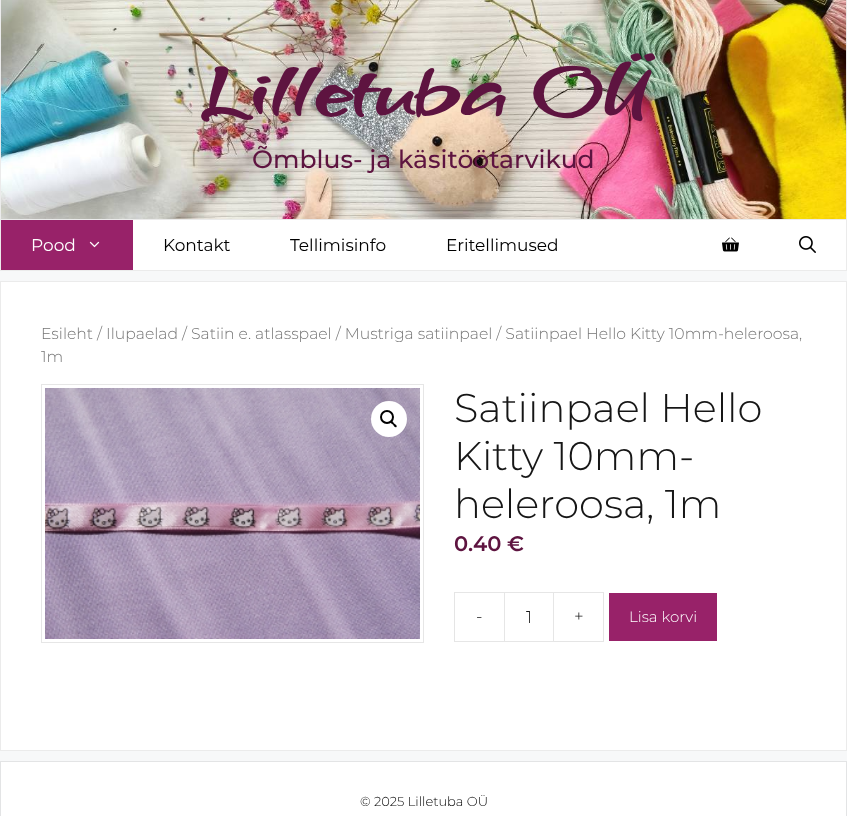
<svg xmlns="http://www.w3.org/2000/svg" width="847" height="816">
<rect width="100%" height="100%" fill="#f7f8f9"/>
<image x="1" y="0" width="845" height="219" href="media/1.png"/>
<path d="M847-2v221h-1v-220z" fill="#ebebeb"/>
<path d="M0 219v-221l1 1v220z" fill="#ebebeb"/>
<text x="199" y="115" style="font-family:Grechen Fuemen;font-size:85px;font-weight:bold;fill:#5e1440">Lilletuba OÜ</text>
<text x="252" y="168" style="font-family:Montserrat;font-size:25px;font-weight:500;fill:#5e1440">Õmblus- ja käsitöötarvikud</text>
<rect x="133" y="220" width="713" height="50" fill="#fff"/>
<rect x="0.5" y="219.5" width="846" height="51" fill="none" stroke="#ebebeb"/>
<rect x="1" y="220" width="132" height="50" fill="#982269"/>
<text x="31" y="251" style="font-family:Montserrat;font-size:17px;fill:#fff">Pood</text>
<image x="89" y="241" width="11" height="7" href="media/2.png"/>
<text x="163" y="251" style="font-family:Montserrat;font-size:17px;fill:#000">Kontakt</text>
<text x="290" y="251" style="font-family:Montserrat;font-size:17px;fill:#000">Tellimisinfo</text>
<text x="446" y="251" style="font-family:Montserrat;font-size:17px;fill:#000">Eritellimused</text>
<image x="722" y="237" width="17" height="15" href="media/3.png"/>
<image x="799" y="236" width="17" height="17" href="media/4.png"/>
<rect x="0.5" y="281.5" width="846" height="469" fill="#fff" stroke="#ebebeb"/>
<text x="41" y="339" style="font-family:Montserrat;font-size:15.65px;font-weight:300;fill:#767676">Esileht / Ilupaelad / Satiin e. atlasspael / Mustriga satiinpael / Satiinpael Hello Kitty 10mm-heleroosa,</text>
<text x="41" y="362" style="font-family:Montserrat;font-size:15.65px;font-weight:300;fill:#767676">1m</text>
<rect x="41.5" y="384.5" width="382" height="258" fill="none" stroke="#e6e6e6"/>
<image x="45" y="388" width="375" height="251" href="media/5.png"/>
<circle cx="389" cy="419" r="18" fill="#fff"/>
<circle cx="387" cy="417" r="6" fill="none" stroke="#000" stroke-width="2"/>
<path d="M390.5 421c1.5-1 3 1.5 3.5 2.5c1 .5 3.5 2 2.5 3.5c-1.5 1-3-1.5-3.5-2.5c-1-.5-3.5-2-2.5-3.5z" fill="#000"/>
<text x="454" y="422" style="font-family:Montserrat;font-size:40px;font-weight:300;fill:#161616">Satiinpael Hello</text>
<text x="454" y="470" style="font-family:Montserrat;font-size:40px;font-weight:300;fill:#161616">Kitty 10mm-</text>
<text x="454" y="518" style="font-family:Montserrat;font-size:40px;font-weight:300;fill:#161616">heleroosa, 1m</text>
<text x="454" y="551" style="font-family:Montserrat;font-size:21px;font-weight:600;fill:#5e1440">0.40 €</text>
<path d="M454 592h50v1h-49zm50 50h-50l1-1h49z" fill="#e6e6e6"/>
<path d="M454 642v-50l1 1v48z" fill="#0000001a"/>
<text x="476" y="622" style="font-family:Montserrat;font-size:17px;font-weight:300;fill:#161616">-</text>
<rect x="504.5" y="592.5" width="49" height="49" fill="none" stroke="#e6e6e6"/>
<text x="526" y="623" style="font-family:Montserrat;font-size:17px;font-weight:300;fill:#161616">1</text>
<path d="M554 592h50l-1 1h-49z" fill="#e6e6e6"/>
<path d="M604 592v50l-1-1v-48z" fill="#0000001a"/>
<path d="M604 642h-50v-1h49z" fill="#0000001a"/>
<text x="574" y="622" style="font-family:Montserrat;font-size:17px;font-weight:300;fill:#161616">+</text>
<rect x="609" y="593" width="108" height="48" fill="#982269"/>
<text x="629" y="622" style="font-family:Montserrat;font-size:15px;font-weight:300;fill:#fff">Lisa korvi</text>
<path d="M0 761h847l-1 1h-845z" fill="#e3e4e5"/>
<path d="M847 761v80h-1v-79z" fill="#00000014"/>
<path d="M0 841v-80l1 1v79z" fill="#00000014"/>
<rect x="1" y="762" width="845" height="54" fill="#fff"/>
<text x="360" y="806" style="font-family:Montserrat;font-size:13px;font-weight:300;fill:#000">© 2025 Lilletuba OÜ</text>
</svg>
